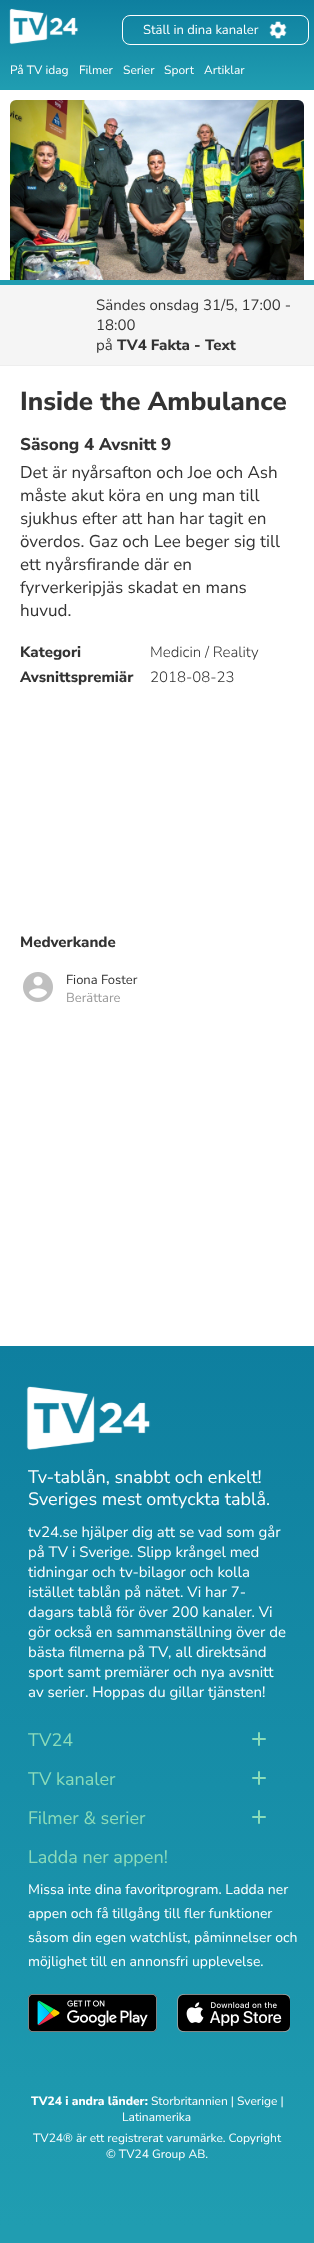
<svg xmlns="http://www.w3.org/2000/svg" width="314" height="2243">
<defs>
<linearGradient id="g1" gradientUnits="userSpaceOnUse" x1="157" y1="90" x2="157" y2="0"><stop offset="0.02" stop-color="#209db1"/><stop offset="1" stop-color="#0e7f9f"/></linearGradient>
<linearGradient id="g2" gradientUnits="userSpaceOnUse" x1="157" y1="2243" x2="157" y2="1346"><stop offset="0.02" stop-color="#209db1"/><stop offset="1" stop-color="#0e7f9f"/></linearGradient>
</defs>
<rect width="100%" height="100%" fill="#fff"/>
<rect width="314" height="90" fill="url(#g1)"/>
<image x="9" y="8" width="70" height="37" href="media/1.png"/>
<rect x="122.5" y="15.5" width="186" height="29" rx="7.5" fill="none" stroke="#fff"/>
<text x="143" y="34" style="font-family:Nunito Sans;font-size:13px;fill:#fff">Ställ in dina kanaler</text>
<image x="269" y="21" width="18" height="18" href="media/2.png"/>
<text x="10" y="74" style="font-family:Nunito Sans;font-size:12px;fill:#fff">På TV idag</text>
<text x="79" y="74" style="font-family:Nunito Sans;font-size:12px;fill:#fff">Filmer</text>
<text x="123" y="74" style="font-family:Nunito Sans;font-size:12px;fill:#fff">Serier</text>
<text x="164" y="74" style="font-family:Nunito Sans;font-size:12px;fill:#fff">Sport</text>
<text x="204" y="74" style="font-family:Nunito Sans;font-size:12px;fill:#fff">Artiklar</text>
<image x="10" y="100" width="294" height="180" href="media/3.png"/>
<rect y="285" width="314" height="80" fill="#f5f5f5"/>
<rect y="280" width="314" height="5" fill="#209db1"/>
<rect y="365" width="314" height="1" fill="#eee"/>
<text x="96" y="310" style="font-family:Nunito Sans;font-size:15px;fill:#333">Sändes onsdag 31/5, 17:00 -</text>
<text x="96" y="330" style="font-family:Nunito Sans;font-size:15px;fill:#333">18:00</text>
<text x="96" y="350" style="font-family:Nunito Sans;font-size:15px;fill:#333">på</text>
<text x="117" y="350" style="font-family:Nunito Sans;font-size:15px;font-weight:800;fill:#333">TV4 Fakta - Text</text>
<text x="20" y="410" style="font-family:Nunito Sans;font-size:26px;font-weight:800;fill:#333">Inside the Ambulance</text>
<text x="20" y="450" style="font-family:Nunito Sans;font-size:17px;font-weight:800;fill:#333">Säsong 4 Avsnitt 9</text>
<text x="20" y="478" style="font-family:Nunito Sans;font-size:17px;fill:#333">Det är nyårsafton och Joe och Ash</text>
<text x="20" y="501" style="font-family:Nunito Sans;font-size:17px;fill:#333">måste akut köra en ung man till</text>
<text x="20" y="524" style="font-family:Nunito Sans;font-size:17px;fill:#333">sjukhus efter att han har tagit en</text>
<text x="20" y="547" style="font-family:Nunito Sans;font-size:17px;fill:#333">överdos. Gaz och Lee beger sig till</text>
<text x="20" y="570" style="font-family:Nunito Sans;font-size:17px;fill:#333">ett nyårsfirande där en</text>
<text x="20" y="593" style="font-family:Nunito Sans;font-size:17px;fill:#333">fyrverkeripjäs skadat en mans</text>
<text x="20" y="616" style="font-family:Nunito Sans;font-size:17px;fill:#333">huvud.</text>
<text x="20" y="657" style="font-family:Nunito Sans;font-size:15px;font-weight:800;fill:#333">Kategori</text>
<text x="150" y="657" style="font-family:Nunito Sans;font-size:15px;font-weight:300;fill:#333">Medicin / Reality</text>
<text x="20" y="682" style="font-family:Nunito Sans;font-size:15px;font-weight:800;fill:#333">Avsnittspremiär</text>
<text x="150" y="682" style="font-family:Nunito Sans;font-size:15px;font-weight:300;fill:#333">2018-08-23</text>
<text x="20" y="947" style="font-family:Nunito Sans;font-size:15px;font-weight:800;fill:#333">Medverkande</text>
<image x="23" y="972" width="30" height="30" href="media/4.png"/>
<text x="66" y="984" style="font-family:Nunito Sans;font-size:13px;fill:#333">Fiona Foster</text>
<text x="66" y="1002" style="font-family:Nunito Sans;font-size:13px;fill:#999">Berättare</text>
<rect y="1346" width="314" height="897" fill="url(#g2)"/>
<image x="26" y="1386" width="125" height="64" href="media/5.png"/>
<text x="28" y="1483" style="font-family:Nunito Sans;font-size:18px;fill:#fff">Tv-tablån, snabbt och enkelt!</text>
<text x="28" y="1505" style="font-family:Nunito Sans;font-size:18px;fill:#fff">Sveriges mest omtyckta tablå.</text>
<text x="28" y="1537" style="font-family:Nunito Sans;font-size:15px;fill:#fff">tv24.se hjälper dig att se vad som går</text>
<text x="28" y="1557" style="font-family:Nunito Sans;font-size:15px;fill:#fff">på TV i Sverige. Slipp krångel med</text>
<text x="28" y="1577" style="font-family:Nunito Sans;font-size:15px;fill:#fff">tidningar och tv-bilagor och kolla</text>
<text x="28" y="1597" style="font-family:Nunito Sans;font-size:15px;fill:#fff">istället tablån på nätet. Vi har 7-</text>
<text x="28" y="1617" style="font-family:Nunito Sans;font-size:15px;fill:#fff">dagars tablå för över 200 kanaler. Vi</text>
<text x="28" y="1637" style="font-family:Nunito Sans;font-size:15px;fill:#fff">gör också en sammanställning över de</text>
<text x="28" y="1657" style="font-family:Nunito Sans;font-size:15px;fill:#fff">bästa filmerna på TV</text>
<text x="168" y="1657" style="font-family:Nunito Sans;font-size:15px;fill:#fff">, all direktsänd</text>
<text x="28" y="1677" style="font-family:Nunito Sans;font-size:15px;fill:#fff">sport samt premiärer och nya avsnitt</text>
<text x="28" y="1697" style="font-family:Nunito Sans;font-size:15px;fill:#fff">av serier</text>
<text x="85" y="1697" style="font-family:Nunito Sans;font-size:15px;fill:#fff">. Hoppas du gillar tjänsten!</text>
<text x="28" y="1746" style="font-family:Nunito Sans;font-size:18px;fill:#8bdcba">TV24</text>
<rect x="252" y="1738" width="14" height="2" rx="1" fill="#8bdcba"/>
<rect x="258" y="1732" width="2" height="14" rx="1" fill="#8bdcba"/>
<text x="28" y="1785" style="font-family:Nunito Sans;font-size:18px;fill:#8bdcba">TV kanaler</text>
<rect x="252" y="1777" width="14" height="2" rx="1" fill="#8bdcba"/>
<rect x="258" y="1771" width="2" height="14" rx="1" fill="#8bdcba"/>
<text x="28" y="1824" style="font-family:Nunito Sans;font-size:18px;fill:#8bdcba">Filmer &amp; serier</text>
<rect x="252" y="1816" width="14" height="2" rx="1" fill="#8bdcba"/>
<rect x="258" y="1810" width="2" height="14" rx="1" fill="#8bdcba"/>
<text x="28" y="1863" style="font-family:Nunito Sans;font-size:18px;fill:#8bdcba">Ladda ner appen!</text>
<text x="28" y="1894" style="font-family:Nunito Sans;font-size:14px;fill:#fff">Missa inte dina favoritprogram. Ladda ner</text>
<text x="28" y="1918" style="font-family:Nunito Sans;font-size:14px;fill:#fff">appen och få tillgång till fler funktioner</text>
<text x="28" y="1942" style="font-family:Nunito Sans;font-size:14px;fill:#fff">såsom din egen watchlist, påminnelser och</text>
<text x="28" y="1966" style="font-family:Nunito Sans;font-size:14px;fill:#fff">möjlighet till en annonsfri upplevelse.</text>
<image x="28" y="1994" width="129" height="38" href="media/6.png"/>
<image x="177" y="1994" width="113" height="38" href="media/7.png"/>
<text x="31" y="2105" style="font-family:Nunito Sans;font-size:12px;font-weight:800;fill:#fff">TV24 i andra länder:</text>
<text x="151" y="2105" style="font-family:Nunito Sans;font-size:12px;fill:#fff">Storbritannien | Sverige |</text>
<text x="122" y="2121" style="font-family:Nunito Sans;font-size:12px;fill:#fff">Latinamerika</text>
<text x="33" y="2142" style="font-family:Nunito Sans;font-size:12px;fill:#fff">TV24® är ett registrerat varumärke. Copyright</text>
<text x="106" y="2158" style="font-family:Nunito Sans;font-size:12px;fill:#fff">© TV24 Group AB.</text>
</svg>
